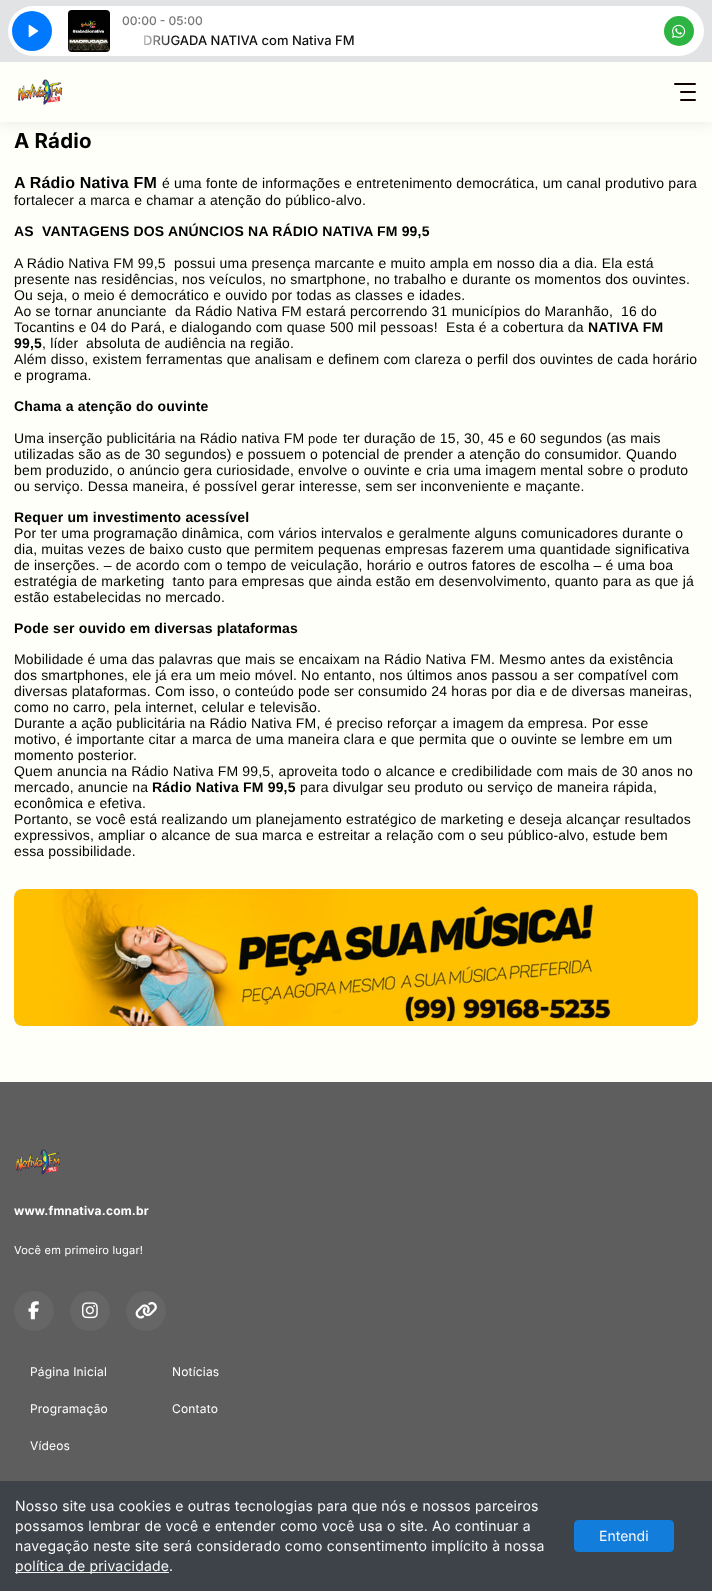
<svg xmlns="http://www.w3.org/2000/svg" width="712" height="1591">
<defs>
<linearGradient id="g1" gradientUnits="userSpaceOnUse" x1="122" y1="41" x2="174" y2="41"><stop offset="0.2" stop-color="#fff"/><stop offset="1" stop-color="#fff" stop-opacity="0"/></linearGradient>
</defs>
<rect width="100%" height="100%" fill="#fffffa"/>
<rect y="64" width="712" height="60" fill="#00000012" filter="blur(7px)"/>
<rect width="712" height="62" fill="#e2e3e4"/>
<rect x="8" y="6" width="696" height="50" rx="25" fill="#fff"/>
<circle cx="32" cy="31" r="20" fill="#0079ff"/>
<image x="28" y="24" width="11" height="14" href="media/1.png"/>
<image x="68" y="10" width="42" height="42" href="media/2.png"/>
<text x="122" y="25" style="font-family:Inter;font-size:12px;font-weight:500;fill:#767676">00:00 - 05:00</text>
<text x="143" y="45" style="font-family:Inter;font-size:13px;font-weight:500;fill:#111">DRUGADA NATIVA com Nativa FM</text>
<rect x="144" y="35" width="29" height="11" fill="url(#g1)"/>
<circle cx="679" cy="31" r="15" fill="#2db442"/>
<image x="672" y="24" width="14" height="14" href="media/3.png"/>
<rect y="62" width="712" height="60" fill="#fffffa"/>
<image x="18" y="79" width="45" height="26" href="media/4.png"/>
<rect x="680" y="91" width="16" height="2" rx="1" fill="#0d0101"/>
<rect x="674" y="83" width="22" height="2" rx="1" fill="#0d0101"/>
<rect x="680" y="99" width="16" height="2" rx="1" fill="#0d0101"/>
<text x="14" y="148" style="font-family:Inter;font-size:20.5px;font-weight:bold;letter-spacing:0.18px;fill:#000302">A Rádio</text>
<text x="14" y="188" style="font-family:Liberation Sans;font-size:16px;font-weight:bold;letter-spacing:0.18px;fill:#000302">A Rádio Nativa FM</text>
<text x="162" y="188" style="font-family:Liberation Sans;font-size:14px;letter-spacing:0.18px;fill:#000302">é uma fonte de informações e entretenimento democrática, um canal produtivo para</text>
<text x="14" y="205" style="font-family:Liberation Sans;font-size:14px;letter-spacing:0.18px;fill:#000302">fortalecer a marca e chamar a atenção do público-alvo.</text>
<text x="14" y="236" style="font-family:Liberation Sans;font-size:14px;font-weight:bold;letter-spacing:0.18px;fill:#000302">AS</text>
<text x="42" y="236" style="font-family:Liberation Sans;font-size:14px;font-weight:bold;letter-spacing:0.18px;fill:#000302">VANTAGENS DOS ANÚNCIOS NA RÁDIO NATIVA FM 99,5</text>
<text x="14" y="268" style="font-family:Liberation Sans;font-size:14px;letter-spacing:0.18px;fill:#000302">A Rádio Nativa FM 99,5</text>
<text x="174" y="268" style="font-family:Liberation Sans;font-size:14px;letter-spacing:0.18px;fill:#000302">possui uma presença marcante e muito ampla em nosso dia a dia. Ela está</text>
<text x="14" y="284" style="font-family:Liberation Sans;font-size:14px;letter-spacing:0.18px;fill:#000302">presente nas residências, nos veículos, no smartphone, no trabalho e durante os momentos dos ouvintes.</text>
<text x="14" y="300" style="font-family:Liberation Sans;font-size:14px;letter-spacing:0.18px;fill:#000302">Ou seja, o meio é democrático e ouvido por todas as classes e idades.</text>
<text x="14" y="316" style="font-family:Liberation Sans;font-size:14px;letter-spacing:0.18px;fill:#000302">Ao se tornar anunciante</text>
<text x="175" y="316" style="font-family:Liberation Sans;font-size:14px;letter-spacing:0.18px;fill:#000302">da Rádio Nativa FM estará percorrendo 31 municípios do Maranhão,</text>
<text x="621" y="316" style="font-family:Liberation Sans;font-size:14px;letter-spacing:0.18px;fill:#000302">16 do</text>
<text x="14" y="332" style="font-family:Liberation Sans;font-size:14px;letter-spacing:0.18px;fill:#000302">Tocantins e 04 do Pará, e dialogando com quase 500 mil pessoas!</text>
<text x="446" y="332" style="font-family:Liberation Sans;font-size:14px;letter-spacing:0.18px;fill:#000302">Esta é a cobertura da</text>
<text x="588" y="332" style="font-family:Liberation Sans;font-size:14px;font-weight:bold;letter-spacing:0.18px;fill:#000302">NATIVA FM</text>
<text x="14" y="348" style="font-family:Liberation Sans;font-size:14px;font-weight:bold;letter-spacing:0.18px;fill:#000302">99,5</text>
<text x="42" y="348" style="font-family:Liberation Sans;font-size:14px;letter-spacing:0.18px;fill:#000302">, líder</text>
<text x="86" y="348" style="font-family:Liberation Sans;font-size:14px;letter-spacing:0.18px;fill:#000302">absoluta de audiência na região.</text>
<text x="14" y="364" style="font-family:Liberation Sans;font-size:14px;letter-spacing:0.18px;fill:#000302">Além disso, existem ferramentas que analisam e definem com clareza o perfil dos ouvintes de cada horário</text>
<text x="14" y="380" style="font-family:Liberation Sans;font-size:14px;letter-spacing:0.18px;fill:#000302">e programa.</text>
<text x="14" y="411" style="font-family:Liberation Sans;font-size:14px;font-weight:bold;letter-spacing:0.18px;fill:#000302">Chama a atenção do ouvinte</text>
<text x="14" y="443" style="font-family:Liberation Sans;font-size:14px;letter-spacing:0.18px;fill:#000302">Uma inserção publicitária na Rádio nativa FM</text>
<text x="308" y="443" style="font-family:Liberation Sans;font-size:13px;letter-spacing:0.18px;fill:#000302">pode</text>
<text x="343" y="443" style="font-family:Liberation Sans;font-size:14px;letter-spacing:0.18px;fill:#000302">ter duração de 15, 30, 45 e 60 segundos (as mais</text>
<text x="14" y="459" style="font-family:Liberation Sans;font-size:14px;letter-spacing:0.18px;fill:#000302">utilizadas são as de 30 segundos) e possuem o potencial de prender a atenção do consumidor. Quando</text>
<text x="14" y="475" style="font-family:Liberation Sans;font-size:14px;letter-spacing:0.18px;fill:#000302">bem produzido, o anúncio gera curiosidade, envolve o ouvinte e cria uma imagem mental sobre o produto</text>
<text x="14" y="491" style="font-family:Liberation Sans;font-size:14px;letter-spacing:0.18px;fill:#000302">ou serviço. Dessa maneira, é possível gerar interesse, sem ser inconveniente e maçante.</text>
<text x="14" y="522" style="font-family:Liberation Sans;font-size:14px;font-weight:bold;letter-spacing:0.18px;fill:#000302">Requer um investimento acessível</text>
<text x="14" y="538" style="font-family:Liberation Sans;font-size:14px;letter-spacing:0.18px;fill:#000302">Por ter uma programação dinâmica, com vários intervalos e geralmente alguns comunicadores durante o</text>
<text x="14" y="554" style="font-family:Liberation Sans;font-size:14px;letter-spacing:0.18px;fill:#000302">dia, muitas vezes de baixo custo que permitem pequenas empresas fazerem uma quantidade significativa</text>
<text x="14" y="570" style="font-family:Liberation Sans;font-size:14px;letter-spacing:0.18px;fill:#000302">de inserções. – de acordo com o tempo de veiculação, horário e outros fatores de escolha – é uma boa</text>
<text x="14" y="586" style="font-family:Liberation Sans;font-size:14px;letter-spacing:0.18px;fill:#000302" xml:space="preserve">estratégia de marketing  tanto para empresas que ainda estão em desenvolvimento, quanto para as que já</text>
<text x="14" y="602" style="font-family:Liberation Sans;font-size:14px;letter-spacing:0.18px;fill:#000302">estão estabelecidas no mercado.</text>
<text x="14" y="633" style="font-family:Liberation Sans;font-size:14px;font-weight:bold;letter-spacing:0.18px;fill:#000302">Pode ser ouvido em diversas plataformas</text>
<text x="14" y="664" style="font-family:Liberation Sans;font-size:14px;letter-spacing:0.18px;fill:#000302">Mobilidade é uma das palavras que mais se encaixam na Rádio Nativa FM. Mesmo antes da existência</text>
<text x="14" y="680" style="font-family:Liberation Sans;font-size:14px;letter-spacing:0.18px;fill:#000302">dos smartphones, ele já era um meio móvel. No entanto, nos últimos anos passou a ser compatível com</text>
<text x="14" y="696" style="font-family:Liberation Sans;font-size:14px;letter-spacing:0.18px;fill:#000302">diversas plataformas. Com isso, o conteúdo pode ser consumido 24 horas por dia e de diversas maneiras,</text>
<text x="14" y="712" style="font-family:Liberation Sans;font-size:14px;letter-spacing:0.18px;fill:#000302">como no carro, pela internet, celular e televisão.</text>
<text x="14" y="728" style="font-family:Liberation Sans;font-size:14px;letter-spacing:0.18px;fill:#000302">Durante a ação publicitária na Rádio Nativa FM, é preciso reforçar a imagem da empresa. Por esse</text>
<text x="14" y="744" style="font-family:Liberation Sans;font-size:14px;letter-spacing:0.18px;fill:#000302">motivo, é importante citar a marca de uma maneira clara e que permita que o ouvinte se lembre em um</text>
<text x="14" y="760" style="font-family:Liberation Sans;font-size:14px;letter-spacing:0.18px;fill:#000302">momento posterior.</text>
<text x="14" y="776" style="font-family:Liberation Sans;font-size:14px;letter-spacing:0.18px;fill:#000302">Quem anuncia na Rádio Nativa FM 99,5, aproveita todo o alcance e credibilidade com mais de 30 anos no</text>
<text x="14" y="792" style="font-family:Liberation Sans;font-size:14px;letter-spacing:0.18px;fill:#000302">mercado, anuncie na</text>
<text x="152" y="792" style="font-family:Liberation Sans;font-size:14px;font-weight:bold;letter-spacing:0.18px;fill:#000302">Rádio Nativa FM 99,5</text>
<text x="300" y="792" style="font-family:Liberation Sans;font-size:14px;letter-spacing:0.18px;fill:#000302">para divulgar seu produto ou serviço de maneira rápida,</text>
<text x="14" y="808" style="font-family:Liberation Sans;font-size:14px;letter-spacing:0.18px;fill:#000302">econômica e efetiva.</text>
<text x="14" y="824" style="font-family:Liberation Sans;font-size:14px;letter-spacing:0.18px;fill:#000302">Portanto, se você está realizando um planejamento estratégico de marketing e deseja alcançar resultados</text>
<text x="14" y="840" style="font-family:Liberation Sans;font-size:14px;letter-spacing:0.18px;fill:#000302">expressivos, ampliar o alcance de sua marca e estreitar a relação com o seu público-alvo, estude bem</text>
<text x="14" y="856" style="font-family:Liberation Sans;font-size:14px;letter-spacing:0.18px;fill:#000302">essa possibilidade.</text>
<rect x="14" y="889" width="684" height="137" rx="8" fill="#d9d9d5"/>
<image x="14" y="889" width="684" height="137" href="media/5.png"/>
<rect y="1082" width="712" height="509" fill="#5e5e5f"/>
<image x="16" y="1149" width="45" height="26" href="media/6.png"/>
<text x="14" y="1215" style="font-family:Inter;font-size:12px;font-weight:bold;letter-spacing:0.18px;fill:#fff">www.fmnativa.com.br</text>
<text x="14" y="1254" style="font-family:Inter;font-size:11.1px;letter-spacing:0.18px;fill:#fff">Você em primeiro lugar!</text>
<circle cx="34" cy="1311" r="20" fill="#666667"/>
<image x="28" y="1301" width="11" height="19" href="media/7.png"/>
<circle cx="90" cy="1311" r="20" fill="#666667"/>
<image x="82" y="1302" width="16" height="17" href="media/8.png"/>
<circle cx="146" cy="1311" r="20" fill="#666667"/>
<image x="135" y="1302" width="22" height="17" href="media/9.png"/>
<text x="30" y="1376" style="font-family:Inter;font-size:12px;letter-spacing:0.18px;fill:#fff">Página Inicial</text>
<text x="172" y="1376" style="font-family:Inter;font-size:12px;letter-spacing:0.18px;fill:#fff">Notícias</text>
<text x="30" y="1413" style="font-family:Inter;font-size:12px;letter-spacing:0.18px;fill:#fff">Programação</text>
<text x="172" y="1413" style="font-family:Inter;font-size:12px;letter-spacing:0.18px;fill:#fff">Contato</text>
<text x="30" y="1450" style="font-family:Inter;font-size:12px;letter-spacing:0.18px;fill:#fff">Vídeos</text>
<image x="105" y="1562" width="47" height="14" href="media/10.png"/>
<rect y="1481" width="712" height="110" fill="#3c4148f2"/>
<text x="15" y="1511" style="font-family:Inter;font-size:14px;letter-spacing:0.18px;fill:#f7f7f7">Nosso site usa cookies e outras tecnologias para que nós e nossos parceiros</text>
<text x="15" y="1531" style="font-family:Inter;font-size:14px;letter-spacing:0.18px;fill:#f7f7f7">possamos lembrar de você e entender como você usa o site. Ao continuar a</text>
<text x="15" y="1551" style="font-family:Inter;font-size:14px;letter-spacing:0.18px;fill:#f7f7f7">navegação neste site será considerado como consentimento implícito à nossa</text>
<rect x="15" y="1572" width="154" height="1" fill="#fffffff2"/>
<text x="15" y="1571" style="font-family:Inter;font-size:14px;letter-spacing:0.18px;fill:#f7f7f7">política de privacidade</text>
<text x="169" y="1571" style="font-family:Inter;font-size:14px;letter-spacing:0.18px;fill:#f7f7f7">.</text>
<rect x="574.5" y="1520.5" width="99" height="31" rx="3.5" fill="#127ddb" stroke="#127ddb"/>
<text x="599" y="1541" style="font-family:Inter;font-size:14px;fill:#f7f7f7">Entendi</text>
</svg>
